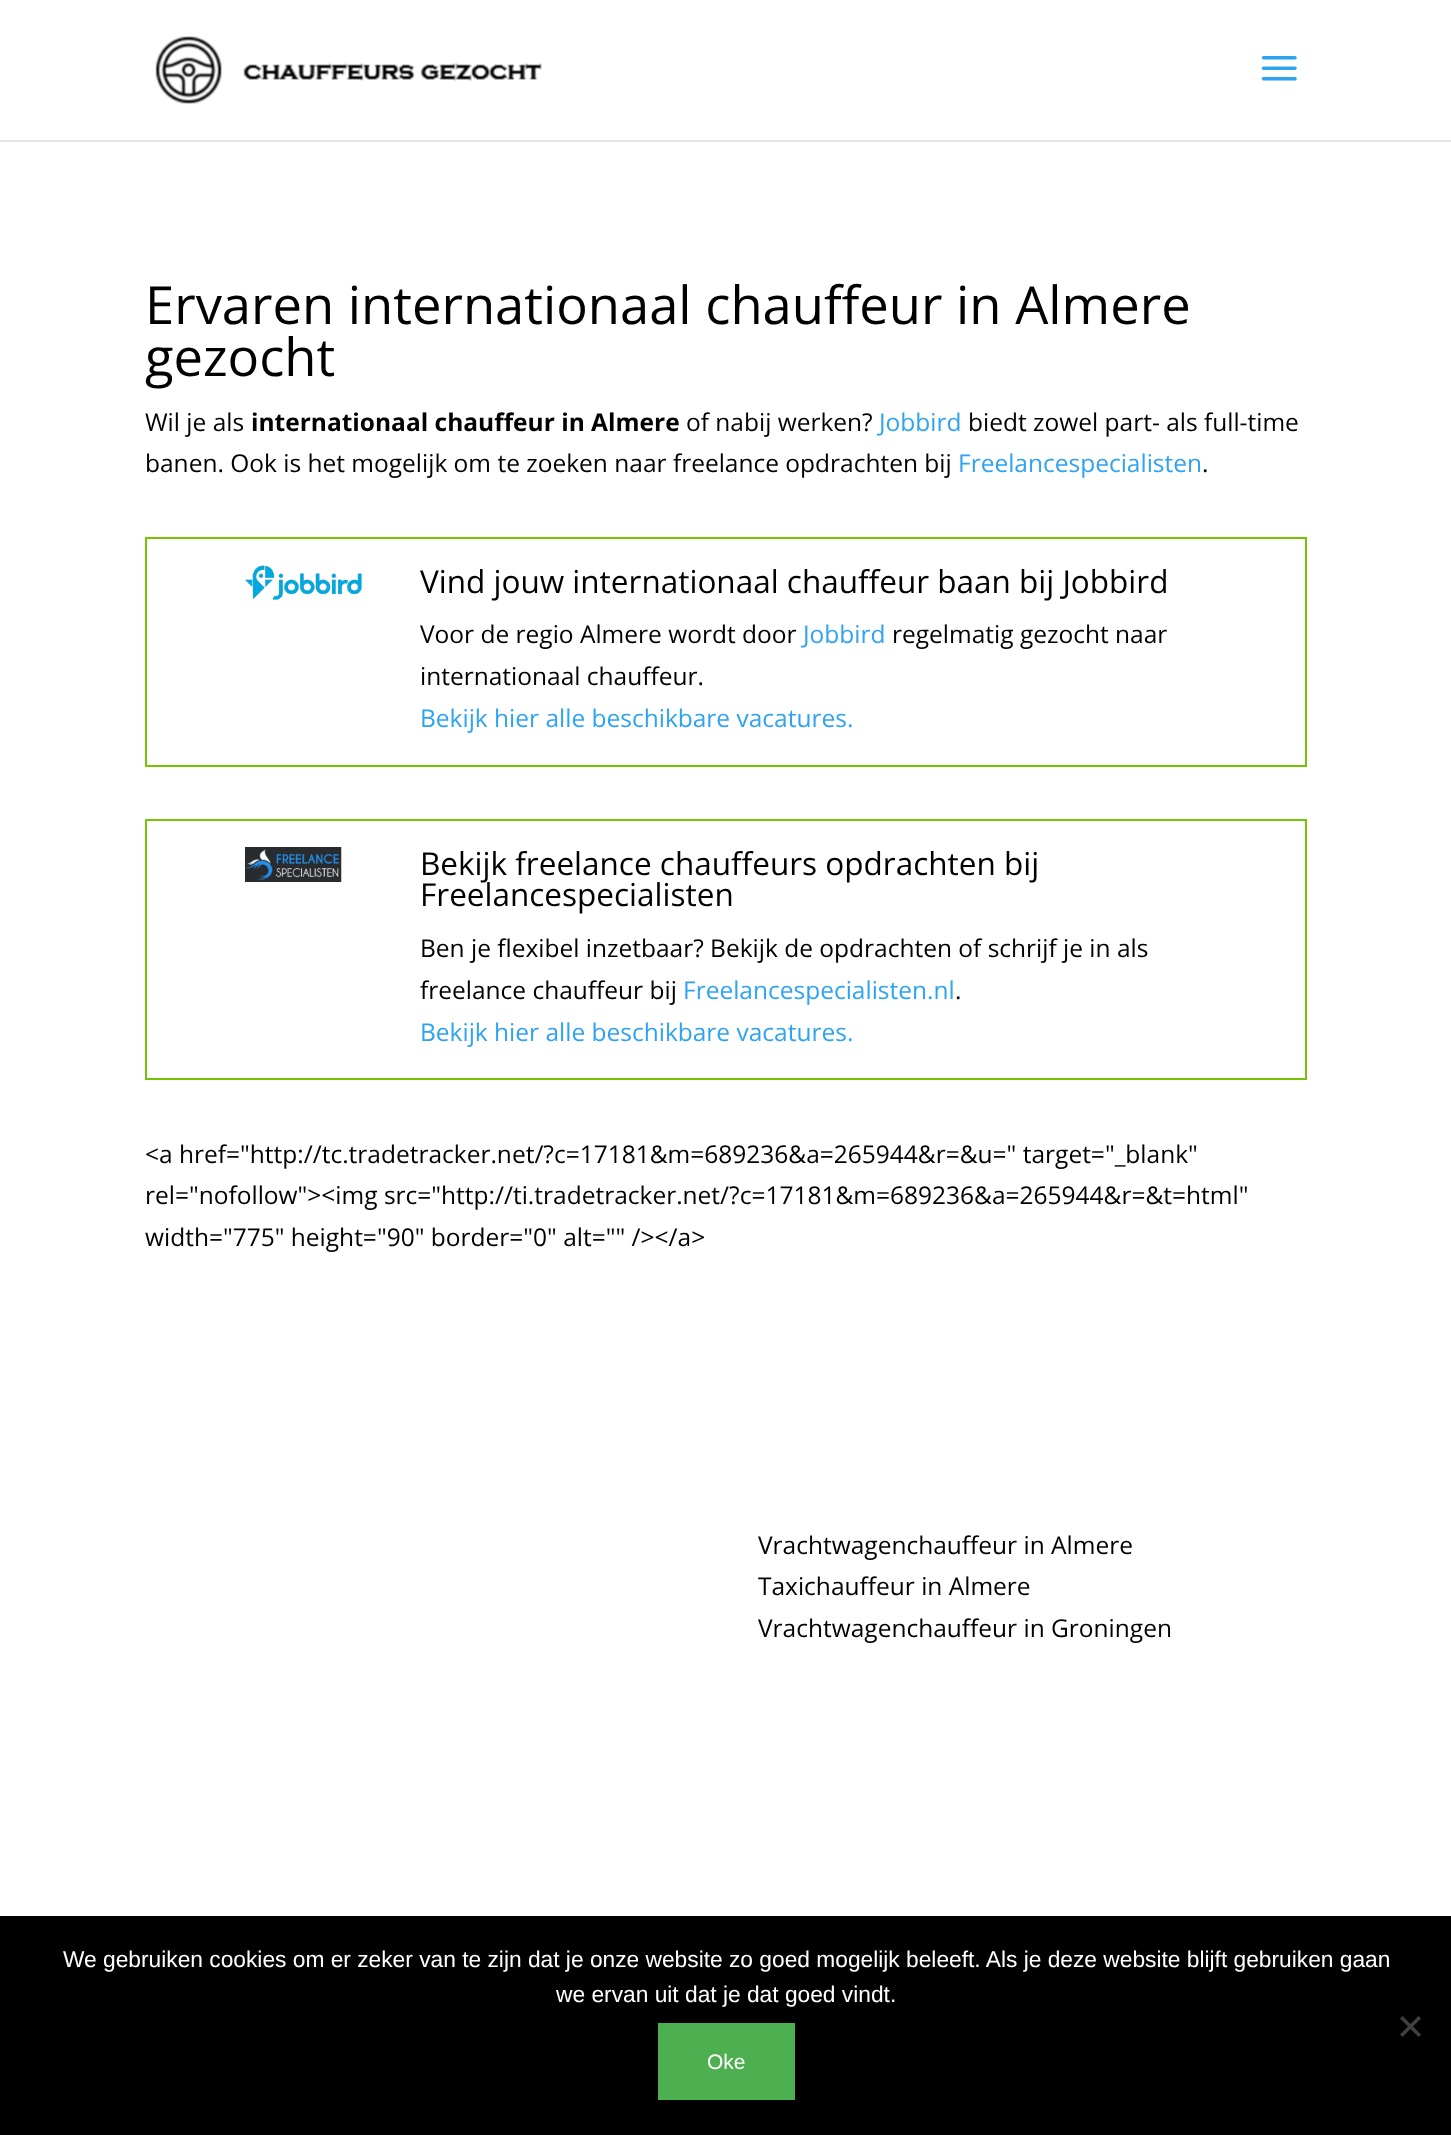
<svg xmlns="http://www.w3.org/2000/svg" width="1451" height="2135">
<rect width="100%" height="100%" fill="#fff"/>
<path d="M0 140v2h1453v-140h-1v138z" fill="#e6e6e6"/>
<image x="155" y="36" width="387" height="68" href="media/1.png"/>
<image x="1261" y="56" width="36" height="25" href="media/2.png"/>
<text x="145" y="324" style="font-family:Open Sans;font-size:52.5px;fill:#000">Ervaren internationaal chauffeur in Almere</text>
<text x="145" y="376" style="font-family:Open Sans;font-size:52.5px;fill:#000">gezocht</text>
<text x="145" y="431" style="font-family:Open Sans;font-size:24.5px;fill:#000">Wil je als</text>
<text x="251" y="431" style="font-family:Open Sans;font-size:24.5px;font-weight:bold;fill:#000">internationaal chauffeur in Almere</text>
<text x="686" y="431" style="font-family:Open Sans;font-size:24.5px;fill:#000">of nabij werken?</text>
<text x="879" y="431" style="font-family:Open Sans;font-size:24.5px;fill:#2ea3f2">Jobbird</text>
<text x="968" y="431" style="font-family:Open Sans;font-size:24.5px;fill:#000">biedt zowel part- als full-time</text>
<text x="145" y="472" style="font-family:Open Sans;font-size:24.5px;fill:#000">banen. Ook is het mogelijk om te zoeken naar freelance opdrachten bij</text>
<text x="958" y="472" style="font-family:Open Sans;font-size:24.5px;fill:#2ea3f2">Freelancespecialisten</text>
<text x="1202" y="472" style="font-family:Open Sans;font-size:24.5px;fill:#000">.</text>
<rect x="146" y="538" width="1160" height="228" fill="none" stroke="#74c403" stroke-width="2"/>
<image x="245" y="565" width="117" height="36" href="media/3.png"/>
<text x="420" y="593" style="font-family:Open Sans;font-size:31.5px;fill:#000">Vind jouw internationaal chauffeur baan bij Jobbird</text>
<text x="420" y="643" style="font-family:Open Sans;font-size:24.5px;fill:#000">Voor de regio Almere wordt door</text>
<text x="803" y="643" style="font-family:Open Sans;font-size:24.5px;fill:#2ea3f2">Jobbird</text>
<text x="892" y="643" style="font-family:Open Sans;font-size:24.5px;fill:#000">regelmatig gezocht naar</text>
<text x="420" y="685" style="font-family:Open Sans;font-size:24.5px;fill:#000">internationaal chauffeur.</text>
<text x="420" y="727" style="font-family:Open Sans;font-size:24.5px;fill:#2ea3f2">Bekijk hier alle beschikbare vacatures.</text>
<rect x="146" y="820" width="1160" height="259" fill="none" stroke="#74c403" stroke-width="2"/>
<image x="245" y="847" width="97" height="35" href="media/4.png"/>
<text x="420" y="875" style="font-family:Open Sans;font-size:31.5px;fill:#000">Bekijk freelance chauffeurs opdrachten bij</text>
<text x="420" y="906" style="font-family:Open Sans;font-size:31.5px;fill:#000">Freelancespecialisten</text>
<text x="420" y="957" style="font-family:Open Sans;font-size:24.5px;fill:#000">Ben je flexibel inzetbaar? Bekijk de opdrachten of schrijf je in als</text>
<text x="420" y="999" style="font-family:Open Sans;font-size:24.5px;fill:#000">freelance chauffeur bij</text>
<text x="683" y="999" style="font-family:Open Sans;font-size:24.5px;fill:#2ea3f2">Freelancespecialisten.nl</text>
<text x="955" y="999" style="font-family:Open Sans;font-size:24.5px;fill:#000">.</text>
<text x="420" y="1041" style="font-family:Open Sans;font-size:24.5px;fill:#2ea3f2">Bekijk hier alle beschikbare vacatures.</text>
<text x="145" y="1163" style="font-family:Open Sans;font-size:24.5px;fill:#000">&lt;a href="http://tc.tradetracker.net/?c=17181&amp;m=689236&amp;a=265944&amp;r=&amp;u=" target="_blank"</text>
<text x="145" y="1204" style="font-family:Open Sans;font-size:24.5px;fill:#000">rel="nofollow"&gt;&lt;img src="http://ti.tradetracker.net/?c=17181&amp;m=689236&amp;a=265944&amp;r=&amp;t=html"</text>
<text x="145" y="1246" style="font-family:Open Sans;font-size:24.5px;fill:#000">width="775" height="90" border="0" alt="" /&gt;&lt;/a&gt;</text>
<text x="758" y="1554" style="font-family:Open Sans;font-size:24.5px;fill:#000">Vrachtwagenchauffeur in Almere</text>
<text x="758" y="1595" style="font-family:Open Sans;font-size:24.5px;fill:#000">Taxichauffeur in Almere</text>
<text x="758" y="1637" style="font-family:Open Sans;font-size:24.5px;fill:#000">Vrachtwagenchauffeur in Groningen</text>
<rect y="1916" width="1451" height="219" fill="#000"/>
<text x="63" y="1967" style="font-family:Liberation Sans;font-size:22.75px;fill:#fff">We gebruiken cookies om er zeker van te zijn dat je onze website zo goed mogelijk beleeft. Als je deze website blijft gebruiken gaan</text>
<text x="556" y="2002" style="font-family:Liberation Sans;font-size:22.75px;fill:#fff">we ervan uit dat je dat goed vindt.</text>
<path d="M1418.5 2016l2.5 2.5l-18.5 18.5l-2.5-2.5z" fill="#404040"/>
<path d="M1400 2018.5l2.5-2.5l18.5 18.5l-2.5 2.5z" fill="#404040"/>
<rect x="658" y="2023" width="137" height="77" fill="#4caf50"/>
<text x="707" y="2069" style="font-family:Liberation Sans;font-size:21px;fill:#fff">Oke</text>
</svg>
